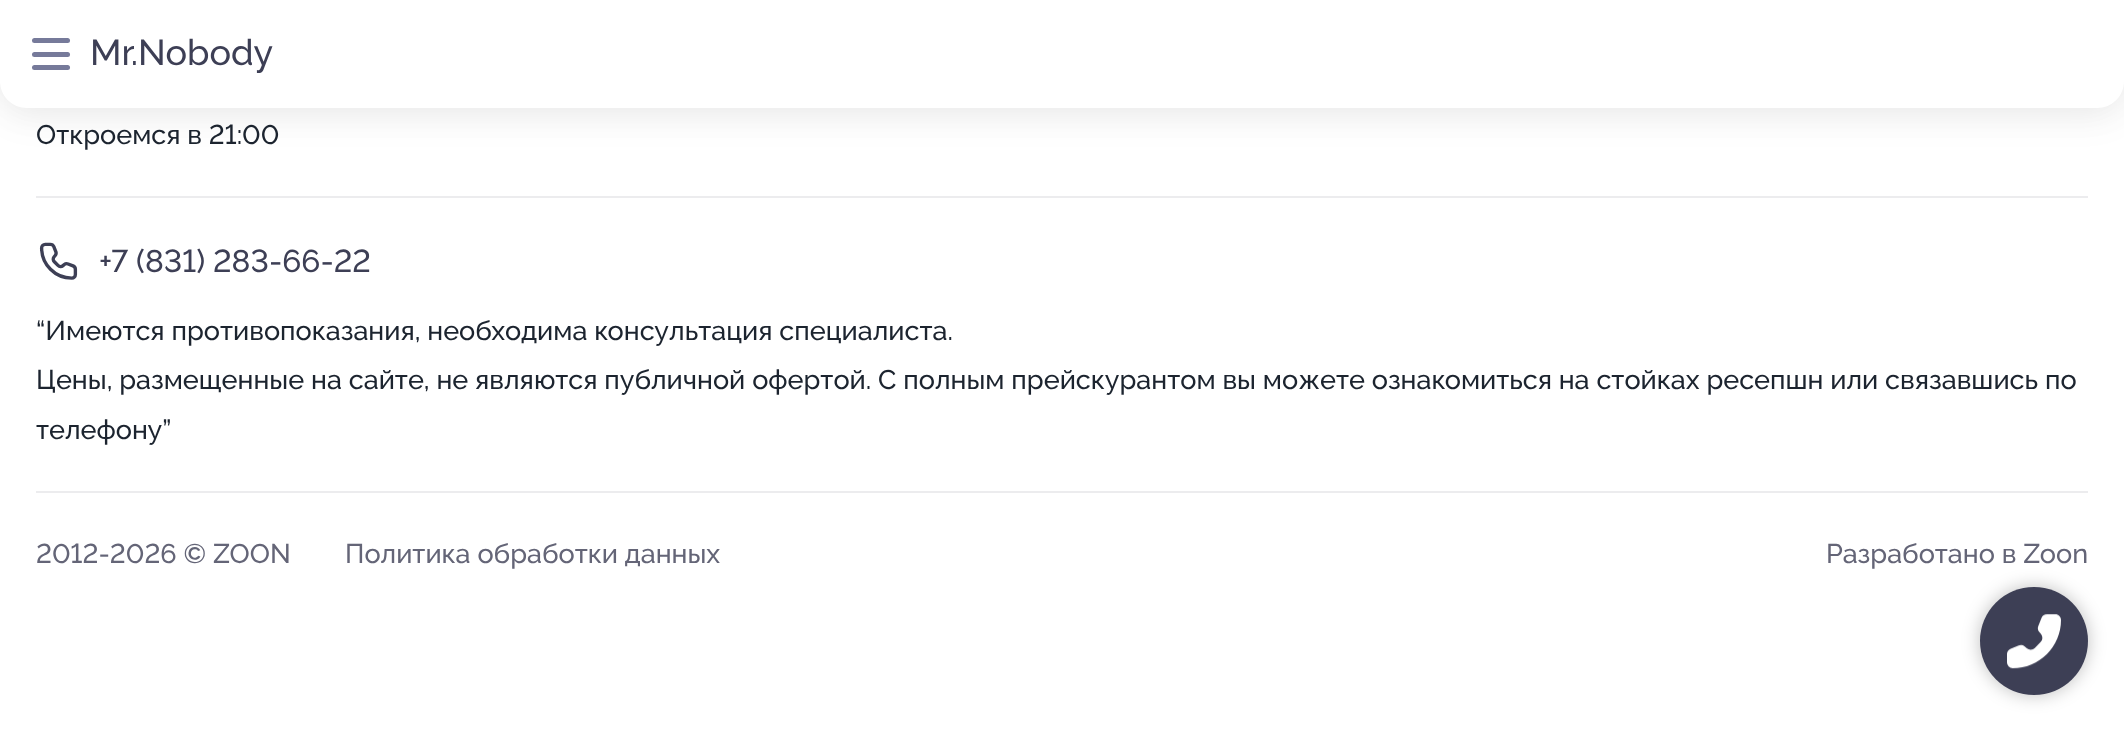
<svg xmlns="http://www.w3.org/2000/svg" width="2124" height="730">
<rect width="100%" height="100%" fill="#fff"/>
<rect y="9" width="2124" height="108" rx="27" fill="#0000000d" filter="blur(18px)"/>
<rect width="2124" height="108" rx="27" fill="#0000000d" filter="blur(18px)"/>
<path d="M0 0h2124v81c0 15-12 27-27 27h-2070c-15 0-27-12-27-27z" fill="#fff"/>
<rect x="32" y="52" width="38" height="5" rx="2.5" fill="#767a9a"/>
<rect x="32" y="38" width="38" height="5" rx="2.5" fill="#767a9a"/>
<rect x="32" y="65" width="38" height="5" rx="2.5" fill="#767a9a"/>
<text x="90" y="65" style="font-family:Raleway;font-size:36px;font-weight:500;fill:#3d3f55">Mr.Nobody</text>
<rect x="36" y="196" width="2052" height="2" fill="#ececee"/>
<text x="36" y="144" style="font-family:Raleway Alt;font-size:27px;font-weight:500;fill:#1c242f">Откроемся в 21:00</text>
<rect x="36" y="491" width="2052" height="2" fill="#ececee"/>
<image x="39" y="242" width="39" height="38" href="media/1.png"/>
<text x="99" y="272" style="font-family:Raleway Alt;font-size:31.5px;font-weight:500;fill:#3d3f55">+7 (831) 283-66-22</text>
<text x="36" y="340" style="font-family:Raleway;font-size:27px;font-weight:500;fill:#1c242f">“Имеются противопоказания, необходима консультация специалиста.</text>
<text x="36" y="389" style="font-family:Raleway;font-size:27px;font-weight:500;fill:#1c242f">Цены, размещенные на сайте, не являются публичной офертой. С полным прейскурантом вы можете ознакомиться на стойках ресепшн или связавшись по</text>
<text x="36" y="439" style="font-family:Raleway;font-size:27px;font-weight:500;fill:#1c242f">телефону”</text>
<text x="36" y="563" style="font-family:Raleway Alt;font-size:27px;font-weight:500;fill:#646577">2012-2026 © ZOON</text>
<text x="345" y="563" style="font-family:Raleway;font-size:27px;font-weight:500;fill:#646577">Политика обработки данных</text>
<text x="1826" y="563" style="font-family:Raleway;font-size:27px;font-weight:500;fill:#646577">Разработано в Zoon</text>
<rect x="1980" y="587" width="108" height="108" rx="54" fill="#00000040" filter="blur(9px)"/>
<circle cx="2034" cy="641" r="54" fill="#3d3f55"/>
<image x="2007" y="614" width="54" height="55" href="media/2.png"/>
</svg>
